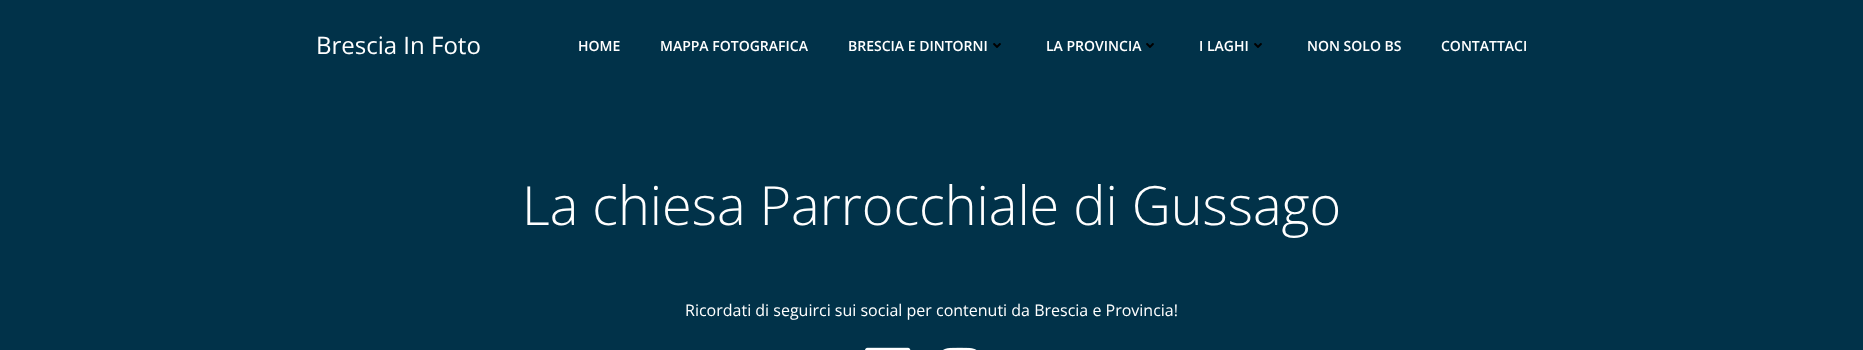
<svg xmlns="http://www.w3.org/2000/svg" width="1863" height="350">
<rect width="100%" height="100%" fill="#013249"/>
<text x="316" y="54" style="font-family:Open Sans;font-size:24px;fill:#fff">Brescia In Foto</text>
<text x="578" y="51" style="font-family:Open Sans;font-size:14px;font-weight:600;fill:#fff">HOME</text>
<text x="660" y="51" style="font-family:Open Sans;font-size:14px;font-weight:600;fill:#fff">MAPPA FOTOGRAFICA</text>
<text x="848" y="51" style="font-family:Open Sans;font-size:14px;font-weight:600;fill:#fff">BRESCIA E DINTORNI</text>
<image x="993" y="43" width="8" height="5" href="media/1.png"/>
<text x="1046" y="51" style="font-family:Open Sans;font-size:14px;font-weight:600;fill:#fff">LA PROVINCIA</text>
<image x="1146" y="43" width="8" height="5" href="media/1.png"/>
<text x="1199" y="51" style="font-family:Open Sans;font-size:14px;font-weight:600;fill:#fff">I LAGHI</text>
<image x="1254" y="43" width="8" height="5" href="media/1.png"/>
<text x="1307" y="51" style="font-family:Open Sans;font-size:14px;font-weight:600;fill:#fff">NON SOLO BS</text>
<text x="1441" y="51" style="font-family:Open Sans;font-size:14px;font-weight:600;fill:#fff">CONTATTACI</text>
<text x="522" y="225" style="font-family:Open Sans;font-size:54px;font-weight:300;fill:#fff">La chiesa Parrocchiale di Gussago</text>
<text x="685" y="316" style="font-family:Open Sans;font-size:16px;fill:#fff">Ricordati di seguirci sui social per contenuti da Brescia e Provincia!</text>
<image x="865" y="347" width="46" height="3" href="media/2.png"/>
<image x="943" y="347" width="34" height="3" href="media/3.png"/>
</svg>
